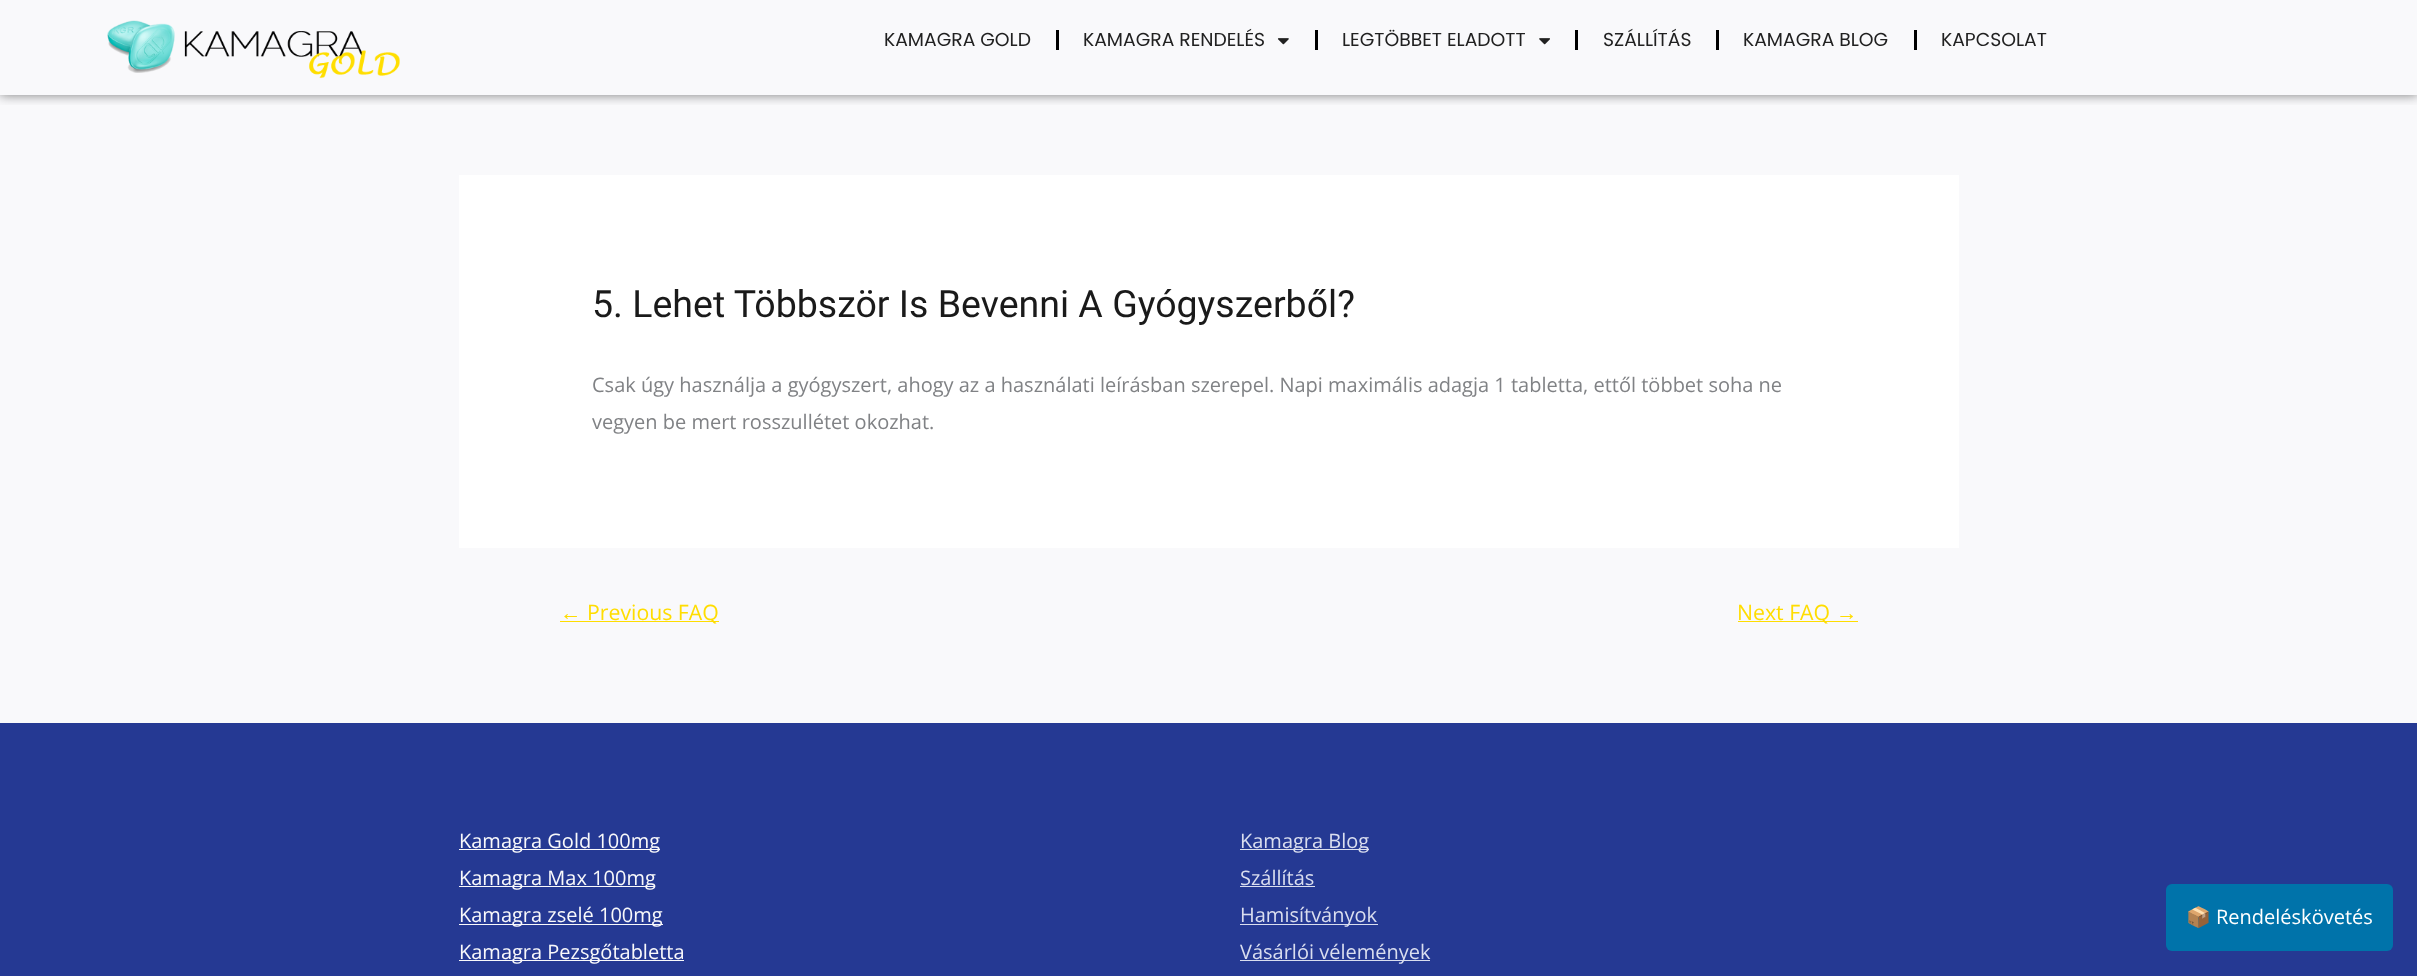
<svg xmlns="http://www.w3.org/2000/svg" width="2417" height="976">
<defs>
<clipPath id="clip1"><rect x="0" y="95" width="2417" height="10"/></clipPath>
</defs>
<rect width="100%" height="100%" fill="#f9f9fb"/>
<g clip-path="url(#clip1)">
<rect y="-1" width="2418" height="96" fill="#00000080" filter="blur(6px)"/>
</g>
<image x="107" y="20" width="293" height="59" href="media/1.png"/>
<text x="884" y="46" style="font-family:Poppins;font-size:18.75px;fill:#212121">KAMAGRA GOLD</text>
<rect x="1056" y="30" width="3" height="20" fill="#000"/>
<text x="1083" y="46" style="font-family:Poppins;font-size:18.75px;fill:#212121">KAMAGRA RENDELÉS</text>
<image x="1277" y="38" width="12" height="7" href="media/2.png"/>
<rect x="1315" y="30" width="3" height="20" fill="#000"/>
<text x="1342" y="46" style="font-family:Poppins;font-size:18.75px;fill:#212121">LEGTÖBBET ELADOTT</text>
<image x="1539" y="38" width="11" height="7" href="media/3.png"/>
<rect x="1575" y="30" width="3" height="20" fill="#000"/>
<text x="1603" y="46" style="font-family:Poppins;font-size:18.75px;fill:#212121">SZÁLLÍTÁS</text>
<rect x="1716" y="30" width="3" height="20" fill="#000"/>
<text x="1743" y="46" style="font-family:Poppins;font-size:18.75px;fill:#212121">KAMAGRA BLOG</text>
<rect x="1914" y="30" width="3" height="20" fill="#000"/>
<text x="1941" y="46" style="font-family:Poppins;font-size:18.75px;fill:#212121">KAPCSOLAT</text>
<rect x="459" y="175" width="1500" height="373" fill="#fff"/>
<text x="592" y="317" style="font-family:Roboto;font-size:37.5px;fill:#1a1a1a">5. Lehet Többször Is Bevenni A Gyógyszerből?</text>
<text x="592" y="392" style="font-family:Open Sans;font-size:20px;fill:#808285">Csak úgy használja a gyógyszert, ahogy az a használati leírásban szerepel. Napi maximális adagja 1 tabletta, ettől többet soha ne</text>
<text x="592" y="429" style="font-family:Open Sans;font-size:20px;fill:#808285">vegyen be mert rosszullétet okozhat.</text>
<text x="560" y="620" style="font-family:Liberation Sans;font-size:21.25px;fill:#fd0">←</text>
<rect x="560" y="621" width="159" height="1" fill="#fd0"/>
<text x="587" y="620" style="font-family:Open Sans;font-size:21.25px;fill:#fd0">Previous FAQ</text>
<rect x="1738" y="621" width="120" height="1" fill="#fd0"/>
<text x="1737" y="620" style="font-family:Open Sans;font-size:21.25px;fill:#fd0">Next FAQ</text>
<text x="1836" y="620" style="font-family:Liberation Sans;font-size:21.25px;fill:#fd0">→</text>
<rect y="723" width="2417" height="253" fill="#253993"/>
<rect x="459" y="849" width="201" height="1" fill="#f9f9fb"/>
<text x="459" y="848" style="font-family:Open Sans;font-size:20px;fill:#f9f9fb">Kamagra Gold 100mg</text>
<rect x="459" y="886" width="196" height="1" fill="#f9f9fb"/>
<text x="459" y="885" style="font-family:Open Sans;font-size:20px;fill:#f9f9fb">Kamagra Max 100mg</text>
<rect x="459" y="924" width="204" height="1" fill="#f9f9fb"/>
<text x="459" y="922" style="font-family:Open Sans;font-size:20px;fill:#f9f9fb">Kamagra zselé 100mg</text>
<rect x="459" y="960" width="225" height="1" fill="#f9f9fb"/>
<text x="459" y="959" style="font-family:Open Sans;font-size:20px;fill:#f9f9fb">Kamagra Pezsgőtabletta</text>
<rect x="1240" y="849" width="129" height="1" fill="#dadeef"/>
<text x="1240" y="848" style="font-family:Open Sans;font-size:20px;fill:#dadeef">Kamagra Blog</text>
<text x="1240" y="885" style="font-family:Open Sans;font-size:20px;fill:#dadeef">Szállítás</text>
<rect x="1240" y="886" width="75" height="1" fill="#dadeef"/>
<rect x="1240" y="924" width="138" height="1" fill="#dadeef"/>
<text x="1240" y="922" style="font-family:Open Sans;font-size:20px;fill:#dadeef">Hamisítványok</text>
<rect x="1240" y="960" width="190" height="1" fill="#dadeef"/>
<text x="1240" y="959" style="font-family:Open Sans;font-size:20px;fill:#dadeef">Vásárlói vélemények</text>
<rect x="2166" y="884" width="227" height="67" rx="6" fill="#0073aa"/>
<text x="2186" y="924" style="font-family:Noto Color Emoji;font-size:20px;fill:#fff">📦</text>
<text x="2216" y="924" style="font-family:Open Sans;font-size:20px;fill:#fff">Rendeléskövetés</text>
</svg>
